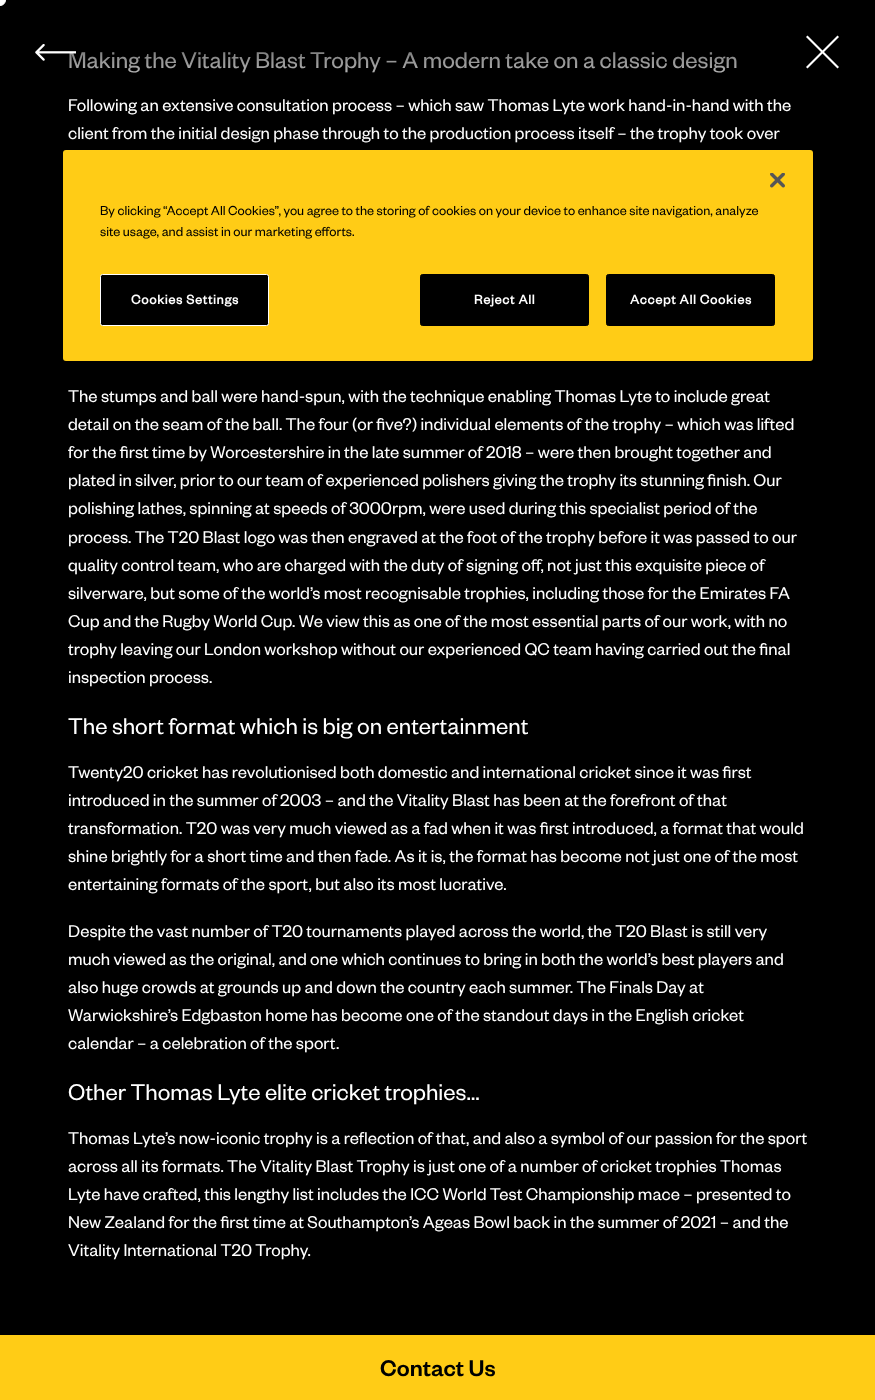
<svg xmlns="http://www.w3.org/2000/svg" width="875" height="1400">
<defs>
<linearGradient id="g1" gradientUnits="userSpaceOnUse" x1="438" y1="0" x2="438" y2="105"><stop offset="0" stop-color="#000"/><stop offset="1" stop-color="#000" stop-opacity="0"/></linearGradient>
</defs>
<rect width="100%" height="100%" fill="#000"/>
<circle cx="0" cy="0" r="5.5" fill="#fff" stroke="#fff"/>
<text x="68" y="68" style="font-family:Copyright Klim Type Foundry;font-size:25px;fill:#fff">Making the Vitality Blast Trophy – A modern take on a classic design</text>
<text x="68" y="111" style="font-family:Copyright Klim Type Foundry;font-size:18.75px;fill:#fff">Following an extensive consultation process – which saw Thomas Lyte work hand-in-hand with the</text>
<rect x="68" y="52" width="707" height="51" fill="url(#g1)"/>
<image x="35" y="44" width="41" height="17" href="media/1.png"/>
<path d="M839 67l-31.5-31.5l-1.5 1.5l31.5 31.5z" fill="#fff"/>
<path d="M837.5 35.5l-31.5 31.5l1.5 1.5l31.5-31.5z" fill="#fff"/>
<text x="68" y="139" style="font-family:Copyright Klim Type Foundry;font-size:18.75px;fill:#fff">client from the initial design phase through to the production process itself – the trophy took over</text>
<text x="68" y="402" style="font-family:Copyright Klim Type Foundry;font-size:18.75px;fill:#fff">The stumps and ball were hand-spun, with the technique enabling Thomas Lyte to include great</text>
<text x="68" y="430" style="font-family:Copyright Klim Type Foundry;font-size:18.75px;fill:#fff">detail on the seam of the ball. The four (or five?) individual elements of the trophy – which was lifted</text>
<text x="68" y="458" style="font-family:Copyright Klim Type Foundry;font-size:18.75px;fill:#fff">for the first time by Worcestershire in the late summer of 2018 – were then brought together and</text>
<text x="68" y="486" style="font-family:Copyright Klim Type Foundry;font-size:18.75px;fill:#fff">plated in silver, prior to our team of experienced polishers giving the trophy its stunning finish. Our</text>
<text x="68" y="514" style="font-family:Copyright Klim Type Foundry;font-size:18.75px;fill:#fff">polishing lathes, spinning at speeds of 3000rpm, were used during this specialist period of the</text>
<text x="68" y="543" style="font-family:Copyright Klim Type Foundry;font-size:18.75px;fill:#fff">process. The T20 Blast logo was then engraved at the foot of the trophy before it was passed to our</text>
<text x="68" y="571" style="font-family:Copyright Klim Type Foundry;font-size:18.75px;fill:#fff">quality control team, who are charged with the duty of signing off, not just this exquisite piece of</text>
<text x="68" y="599" style="font-family:Copyright Klim Type Foundry;font-size:18.75px;fill:#fff">silverware, but some of the world’s most recognisable trophies, including those for the Emirates FA</text>
<text x="68" y="627" style="font-family:Copyright Klim Type Foundry;font-size:18.75px;fill:#fff">Cup and the Rugby World Cup. We view this as one of the most essential parts of our work, with no</text>
<text x="68" y="655" style="font-family:Copyright Klim Type Foundry;font-size:18.75px;fill:#fff">trophy leaving our London workshop without our experienced QC team having carried out the final</text>
<text x="68" y="683" style="font-family:Copyright Klim Type Foundry;font-size:18.75px;fill:#fff">inspection process.</text>
<text x="68" y="734" style="font-family:Copyright Klim Type Foundry;font-size:25px;fill:#fff">The short format which is big on entertainment</text>
<text x="68" y="778" style="font-family:Copyright Klim Type Foundry;font-size:18.75px;fill:#fff">Twenty20 cricket has revolutionised both domestic and international cricket since it was first</text>
<text x="68" y="806" style="font-family:Copyright Klim Type Foundry;font-size:18.75px;fill:#fff">introduced in the summer of 2003 – and the Vitality Blast has been at the forefront of that</text>
<text x="68" y="834" style="font-family:Copyright Klim Type Foundry;font-size:18.75px;fill:#fff">transformation. T20 was very much viewed as a fad when it was first introduced, a format that would</text>
<text x="68" y="862" style="font-family:Copyright Klim Type Foundry;font-size:18.75px;fill:#fff">shine brightly for a short time and then fade. As it is, the format has become not just one of the most</text>
<text x="68" y="890" style="font-family:Copyright Klim Type Foundry;font-size:18.75px;fill:#fff">entertaining formats of the sport, but also its most lucrative.</text>
<text x="68" y="937" style="font-family:Copyright Klim Type Foundry;font-size:18.75px;fill:#fff">Despite the vast number of T20 tournaments played across the world, the T20 Blast is still very</text>
<text x="68" y="965" style="font-family:Copyright Klim Type Foundry;font-size:18.75px;fill:#fff">much viewed as the original, and one which continues to bring in both the world’s best players and</text>
<text x="68" y="993" style="font-family:Copyright Klim Type Foundry;font-size:18.75px;fill:#fff">also huge crowds at grounds up and down the country each summer. The Finals Day at</text>
<text x="68" y="1021" style="font-family:Copyright Klim Type Foundry;font-size:18.75px;fill:#fff">Warwickshire’s Edgbaston home has become one of the standout days in the English cricket</text>
<text x="68" y="1049" style="font-family:Copyright Klim Type Foundry;font-size:18.75px;fill:#fff">calendar – a celebration of the sport.</text>
<text x="68" y="1100" style="font-family:Copyright Klim Type Foundry;font-size:25px;fill:#fff">Other Thomas Lyte elite cricket trophies…</text>
<text x="68" y="1144" style="font-family:Copyright Klim Type Foundry;font-size:18.75px;fill:#fff">Thomas Lyte’s now-iconic trophy is a reflection of that, and also a symbol of our passion for the sport</text>
<text x="68" y="1172" style="font-family:Copyright Klim Type Foundry;font-size:18.75px;fill:#fff">across all its formats. The Vitality Blast Trophy is just one of a number of cricket trophies Thomas</text>
<text x="68" y="1200" style="font-family:Copyright Klim Type Foundry;font-size:18.75px;fill:#fff">Lyte have crafted, this lengthy list includes the ICC World Test Championship mace – presented to</text>
<text x="68" y="1228" style="font-family:Copyright Klim Type Foundry;font-size:18.75px;fill:#fff">New Zealand for the first time at Southampton’s Ageas Bowl back in the summer of 2021 – and the</text>
<text x="68" y="1256" style="font-family:Copyright Klim Type Foundry;font-size:18.75px;fill:#fff">Vitality International T20 Trophy.</text>
<rect y="1335" width="875" height="65" fill="#ffcc16"/>
<text x="380" y="1376" style="font-family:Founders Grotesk;font-size:25px;font-weight:500;fill:#000">Contact Us</text>
<rect x="63" y="150" width="750" height="211" rx="3" fill="#00000033" filter="blur(11px)"/>
<rect x="63" y="150" width="750" height="211" rx="3" fill="#ffcc16"/>
<image x="770" y="173" width="15" height="15" href="media/2.png"/>
<text x="100" y="215" style="font-family:Copyright Klim Type Foundry;font-size:14.25px;fill:#000">By clicking “Accept All Cookies”, you agree to the storing of cookies on your device to enhance site navigation, analyze</text>
<text x="100" y="236" style="font-family:Copyright Klim Type Foundry;font-size:14.25px;fill:#000">site usage, and assist in our marketing efforts.</text>
<rect x="100.5" y="274.5" width="168" height="51" rx="2" fill="#000" stroke="#fff"/>
<text x="131" y="304" style="font-family:Copyright Klim Type Foundry;font-size:14.25px;font-weight:bold;letter-spacing:0.75px;fill:#fff">Cookies Settings</text>
<rect x="420.5" y="274.5" width="168" height="51" rx="2" fill="#000" stroke="#000"/>
<text x="474" y="304" style="font-family:Copyright Klim Type Foundry;font-size:14.25px;font-weight:bold;letter-spacing:0.75px;fill:#fff">Reject All</text>
<rect x="606.5" y="274.5" width="168" height="51" rx="2" fill="#000" stroke="#000"/>
<text x="630" y="304" style="font-family:Copyright Klim Type Foundry;font-size:14.25px;font-weight:bold;letter-spacing:0.75px;fill:#fff">Accept All Cookies</text>
</svg>
